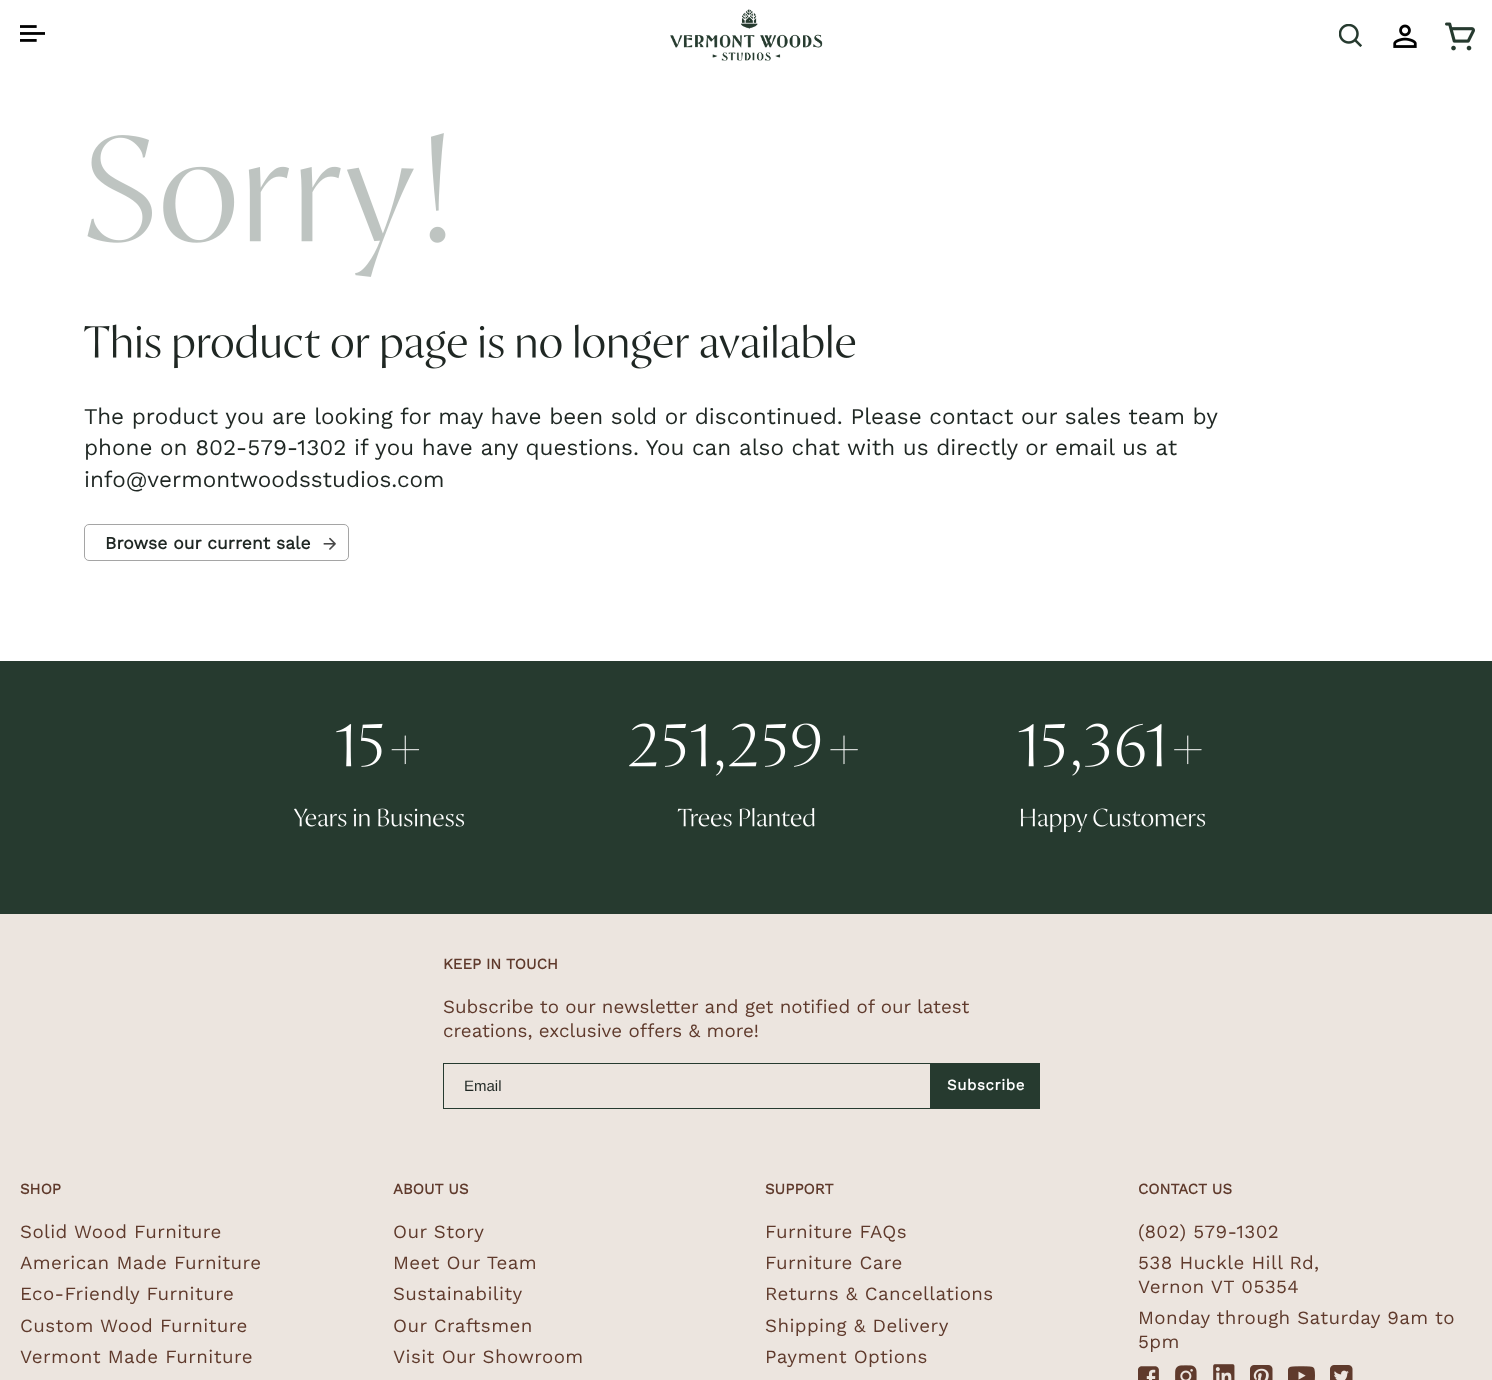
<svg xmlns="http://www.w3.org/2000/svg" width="1492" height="1380">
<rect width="100%" height="100%" fill="#fff"/>
<image x="20" y="25" width="25" height="17" href="media/1.png"/>
<image x="670" y="9" width="153" height="52" href="media/2.png"/>
<image x="1339" y="24" width="23" height="23" href="media/3.png"/>
<image x="1393" y="24" width="24" height="24" href="media/4.png"/>
<image x="1445" y="22" width="30" height="29" href="media/5.png"/>
<image x="87" y="133" width="359" height="144" href="media/6.png"/>
<image x="84" y="324" width="772" height="45" href="media/7.png"/>
<text x="84" y="424" style="font-family:Work Sans;font-size:22.5px;fill:#1f2723">The product you are looking for may have been sold or discontinued. Please contact our sales team by</text>
<text x="84" y="455" style="font-family:Work Sans;font-size:22.5px;fill:#1f2723">phone on 802-579-1302 if you have any questions. You can also chat with us directly or email us at</text>
<text x="84" y="487" style="font-family:Work Sans;font-size:22.5px;fill:#1f2723">info@vermontwoodsstudios.com</text>
<rect x="84.5" y="524.5" width="264" height="36" rx="4.5" fill="none" stroke="#a5a5a5"/>
<text x="105" y="549" style="font-family:Work Sans;font-size:17.5px;font-weight:bold;fill:#1f2723">Browse our current sale</text>
<image x="323" y="537" width="13" height="13" href="media/8.png"/>
<rect y="661" width="1492" height="253" fill="#263a2f"/>
<image x="336" y="723" width="47" height="44" href="media/9.png"/>
<image x="391" y="735" width="29" height="30" href="media/10.png"/>
<image x="294" y="808" width="171" height="19" href="media/11.png"/>
<image x="629" y="723" width="192" height="53" href="media/12.png"/>
<image x="830" y="735" width="28" height="30" href="media/13.png"/>
<image x="677" y="808" width="138" height="19" href="media/14.png"/>
<image x="1018" y="723" width="144" height="53" href="media/15.png"/>
<image x="1174" y="735" width="28" height="30" href="media/16.png"/>
<image x="1020" y="808" width="186" height="25" href="media/17.png"/>
<rect y="914" width="1492" height="466" fill="#ece5df"/>
<text x="443" y="969" style="font-family:Work Sans;font-size:15px;font-weight:bold;fill:#5f3a2c">KEEP IN TOUCH</text>
<text x="443" y="1013" style="font-family:Work Sans;font-size:18.75px;fill:#5f3a2c">Subscribe to our newsletter and get notified of our latest</text>
<text x="443" y="1037" style="font-family:Work Sans;font-size:18.75px;fill:#5f3a2c">creations, exclusive offers &amp; more!</text>
<rect x="443.5" y="1063.5" width="487" height="45" fill="none" stroke="#263a2f"/>
<text x="464" y="1091" style="font-family:Liberation Sans;font-size:15px;fill:#1f2723">Email</text>
<rect x="931" y="1063" width="109" height="46" fill="#263a2f"/>
<text x="947" y="1090" style="font-family:Work Sans;font-size:15px;font-weight:bold;letter-spacing:0.6px;fill:#fff">Subscribe</text>
<text x="20" y="1194" style="font-family:Work Sans;font-size:15px;font-weight:bold;fill:#5f3a2c">SHOP</text>
<text x="20" y="1238" style="font-family:Work Sans;font-size:18.75px;letter-spacing:0.4px;fill:#5f3a2c">Solid Wood Furniture</text>
<text x="20" y="1269" style="font-family:Work Sans;font-size:18.75px;letter-spacing:0.4px;fill:#5f3a2c">American Made Furniture</text>
<text x="20" y="1300" style="font-family:Work Sans;font-size:18.75px;letter-spacing:0.4px;fill:#5f3a2c">Eco-Friendly Furniture</text>
<text x="20" y="1332" style="font-family:Work Sans;font-size:18.75px;letter-spacing:0.4px;fill:#5f3a2c">Custom Wood Furniture</text>
<text x="20" y="1363" style="font-family:Work Sans;font-size:18.75px;letter-spacing:0.4px;fill:#5f3a2c">Vermont Made Furniture</text>
<text x="393" y="1194" style="font-family:Work Sans;font-size:15px;font-weight:bold;fill:#5f3a2c">ABOUT US</text>
<text x="393" y="1238" style="font-family:Work Sans;font-size:18.75px;letter-spacing:0.4px;fill:#5f3a2c">Our Story</text>
<text x="393" y="1269" style="font-family:Work Sans;font-size:18.75px;letter-spacing:0.4px;fill:#5f3a2c">Meet Our Team</text>
<text x="393" y="1300" style="font-family:Work Sans;font-size:18.75px;letter-spacing:0.4px;fill:#5f3a2c">Sustainability</text>
<text x="393" y="1332" style="font-family:Work Sans;font-size:18.75px;letter-spacing:0.4px;fill:#5f3a2c">Our Craftsmen</text>
<text x="393" y="1363" style="font-family:Work Sans;font-size:18.75px;letter-spacing:0.4px;fill:#5f3a2c">Visit Our Showroom</text>
<text x="765" y="1194" style="font-family:Work Sans;font-size:15px;font-weight:bold;fill:#5f3a2c">SUPPORT</text>
<text x="765" y="1238" style="font-family:Work Sans;font-size:18.75px;letter-spacing:0.4px;fill:#5f3a2c">Furniture FAQs</text>
<text x="765" y="1269" style="font-family:Work Sans;font-size:18.75px;letter-spacing:0.4px;fill:#5f3a2c">Furniture Care</text>
<text x="765" y="1300" style="font-family:Work Sans;font-size:18.75px;letter-spacing:0.4px;fill:#5f3a2c">Returns &amp; Cancellations</text>
<text x="765" y="1332" style="font-family:Work Sans;font-size:18.75px;letter-spacing:0.4px;fill:#5f3a2c">Shipping &amp; Delivery</text>
<text x="765" y="1363" style="font-family:Work Sans;font-size:18.75px;letter-spacing:0.4px;fill:#5f3a2c">Payment Options</text>
<text x="1138" y="1194" style="font-family:Work Sans;font-size:15px;font-weight:bold;fill:#5f3a2c">CONTACT US</text>
<text x="1138" y="1238" style="font-family:Work Sans;font-size:18.75px;letter-spacing:0.4px;fill:#5f3a2c">(802) 579-1302</text>
<text x="1138" y="1269" style="font-family:Work Sans;font-size:18.75px;letter-spacing:0.4px;fill:#5f3a2c">538 Huckle Hill Rd,</text>
<text x="1138" y="1293" style="font-family:Work Sans;font-size:18.75px;letter-spacing:0.4px;fill:#5f3a2c">Vernon VT 05354</text>
<text x="1138" y="1324" style="font-family:Work Sans;font-size:18.75px;letter-spacing:0.4px;fill:#5f3a2c">Monday through Saturday 9am to</text>
<text x="1138" y="1348" style="font-family:Work Sans;font-size:18.75px;letter-spacing:0.4px;fill:#5f3a2c">5pm</text>
<image x="1138" y="1366" width="21" height="14" href="media/18.png"/>
<image x="1175" y="1365" width="22" height="15" href="media/19.png"/>
<image x="1213" y="1364" width="22" height="16" href="media/20.png"/>
<image x="1250" y="1365" width="23" height="15" href="media/21.png"/>
<image x="1288" y="1366" width="27" height="14" href="media/22.png"/>
<image x="1330" y="1365" width="23" height="15" href="media/23.png"/>
</svg>
